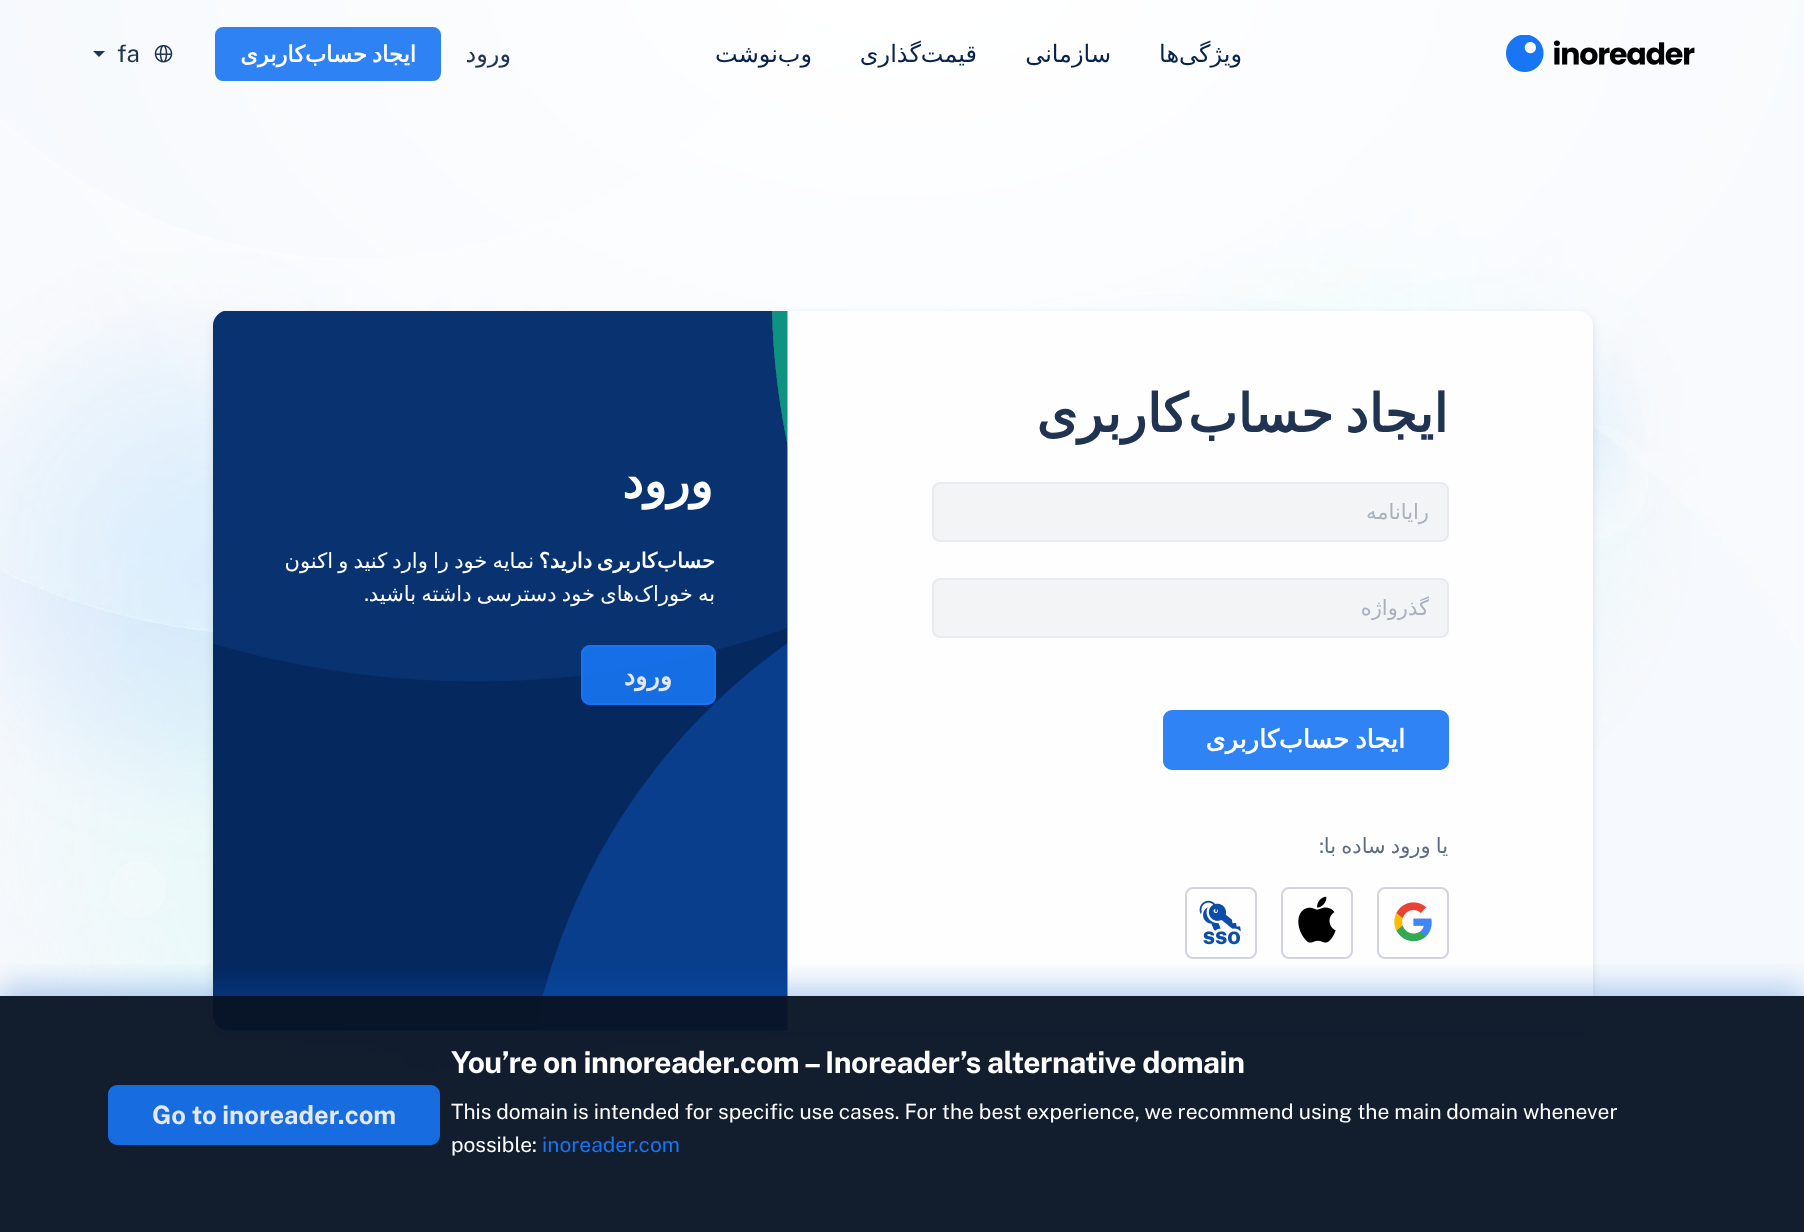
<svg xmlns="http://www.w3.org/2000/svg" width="1804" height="1232">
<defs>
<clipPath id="clip1"><rect x="951" y="596" width="479" height="24"/></clipPath>
<clipPath id="clip2"><rect x="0" y="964" width="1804" height="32"/></clipPath>
</defs>
<rect width="100%" height="100%" fill="#f6f9fd"/>
<image x="0" y="0" width="1798" height="1232" href="media/1.png"/>
<path d="M93 51h12l-6 6z" fill="#203451"/>
<text x="117" y="62" style="font-family:Public Sans;font-size:24px;font-weight:100;fill:#203451">fa</text>
<image x="154" y="45" width="19" height="18" href="media/2.png"/>
<rect x="216" y="28" width="224" height="52" rx="7" fill="#2f82f4" stroke="#2f82f4" stroke-width="2"/>
<text x="416" y="62" word-spacing="-2" style="font-family:DejaVu Sans;font-size:22.5px;font-weight:bold;direction:rtl;fill:#fefefe">ایجاد حساب‌کاربری</text>
<text x="511" y="62" style="font-family:DejaVu Sans;font-size:24px;direction:rtl;fill:#203451">ورود</text>
<text x="812" y="62" style="font-family:DejaVu Sans;font-size:24px;direction:rtl;fill:#08234c">وب‌نوشت</text>
<text x="977" y="62" style="font-family:DejaVu Sans;font-size:24px;direction:rtl;fill:#08234c">قیمت‌گذاری</text>
<text x="1111" y="62" style="font-family:DejaVu Sans;font-size:24px;direction:rtl;fill:#08234c">سازمانی</text>
<text x="1242" y="62" style="font-family:DejaVu Sans;font-size:24px;direction:rtl;fill:#08234c">ویژگی‌ها</text>
<image x="1506" y="35" width="189" height="37" href="media/3.png"/>
<rect x="213" y="315" width="1380" height="720" rx="15" fill="#0814251a" filter="blur(4.5px)"/>
<rect x="213" y="311" width="1380" height="720" rx="15" fill="#fefefe"/>
<image x="213" y="311" width="575" height="720" href="media/4.png"/>
<text x="713" y="498" style="font-family:DejaVu Sans;font-size:48px;font-weight:bold;letter-spacing:-0.48px;direction:rtl;fill:#fefefe">ورود</text>
<text x="534" y="568" word-spacing="-1.5" style="font-family:DejaVu Sans;font-size:21px;direction:rtl;fill:#fefefe">نمایه خود را وارد کنید و اکنون</text>
<text x="715" y="568" word-spacing="-2" style="font-family:DejaVu Sans;font-size:21px;font-weight:bold;direction:rtl;fill:#fefefe">حساب‌کاربری دارید؟</text>
<text x="369" y="601" style="font-family:Public Sans;font-size:21px;font-weight:100;direction:rtl;fill:#fefefe">.</text>
<text x="715" y="601" word-spacing="-1.5" style="font-family:DejaVu Sans;font-size:21px;direction:rtl;fill:#fefefe">به خوراک‌های خود دسترسی داشته باشید</text>
<rect x="581" y="645" width="135" height="60" rx="9" fill="#1875f3e6"/>
<rect x="582" y="646" width="133" height="58" rx="8" fill="none" stroke="#1875f3e6" stroke-width="2"/>
<text x="672" y="685" style="font-family:DejaVu Sans;font-size:25.5px;font-weight:bold;direction:rtl;fill:#e5e9ee">ورود</text>
<text x="1448" y="432" word-spacing="-5" style="font-family:DejaVu Sans;font-size:52.75px;font-weight:bold;direction:rtl;fill:#203451">ایجاد حساب‌کاربری</text>
<rect x="933" y="483" width="515" height="58" rx="7" fill="#f2f4f6" stroke="#e9eaf0" stroke-width="2"/>
<text x="1429" y="519" style="font-family:DejaVu Sans;font-size:21px;direction:rtl;fill:#a8b1bc">رایانامه</text>
<rect x="933" y="579" width="515" height="58" rx="7" fill="#f2f4f6" stroke="#e9eaf0" stroke-width="2"/>
<g clip-path="url(#clip1)">
<text x="1429" y="615" style="font-family:DejaVu Sans;font-size:21px;direction:rtl;fill:#a8b1bc">گذرواژه</text>
</g>
<rect x="1164" y="711" width="284" height="58" rx="8" fill="#2f83f4" stroke="#2f83f4" stroke-width="2"/>
<text x="1405" y="748" word-spacing="-2" style="font-family:DejaVu Sans;font-size:25.5px;font-weight:bold;direction:rtl;fill:#fefefe">ایجاد حساب‌کاربری</text>
<text x="1324" y="853" style="font-family:Public Sans;font-size:21px;font-weight:100;direction:rtl;fill:#5e6d82">:</text>
<text x="1448" y="853" word-spacing="-1.5" style="font-family:DejaVu Sans;font-size:21px;direction:rtl;fill:#5e6d82">یا ورود ساده با</text>
<rect x="1186" y="888" width="70" height="70" rx="7" fill="none" stroke="#d1d3df" stroke-width="2"/>
<image x="1199" y="900" width="42" height="45" href="media/5.png"/>
<rect x="1282" y="888" width="70" height="70" rx="7" fill="none" stroke="#d1d3df" stroke-width="2"/>
<image x="1298" y="896" width="38" height="47" href="media/6.png"/>
<rect x="1378" y="888" width="70" height="70" rx="7" fill="none" stroke="#d1d3df" stroke-width="2"/>
<image x="1394" y="902" width="38" height="40" href="media/7.png"/>
<g clip-path="url(#clip2)">
<rect y="987" width="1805" height="237" fill="#0b5dcd4d" filter="blur(15px)"/>
</g>
<rect y="996" width="1804" height="236" fill="#081425f5"/>
<rect x="109" y="1086" width="330" height="58" rx="8" fill="#176cdf" stroke="#176cdf" stroke-width="2"/>
<text x="152" y="1124" style="font-family:Public Sans;font-size:25.5px;font-weight:bold;fill:#e5e9ee">Go to inoreader.com</text>
<text x="451" y="1073" style="font-family:Public Sans;font-size:30px;font-weight:bold;letter-spacing:-0.48px;fill:#fefefe">You’re on innoreader.com – Inoreader’s alternative domain</text>
<text x="451" y="1119" style="font-family:Public Sans;font-size:21px;font-weight:100;fill:#fefefe">This domain is intended for specific use cases. For the best experience, we recommend using the main domain whenever</text>
<text x="451" y="1152" style="font-family:Public Sans;font-size:21px;font-weight:100;fill:#fefefe">possible:</text>
<text x="542" y="1152" style="font-family:Public Sans;font-size:21px;font-weight:100;fill:#1875f3">inoreader.com</text>
</svg>
